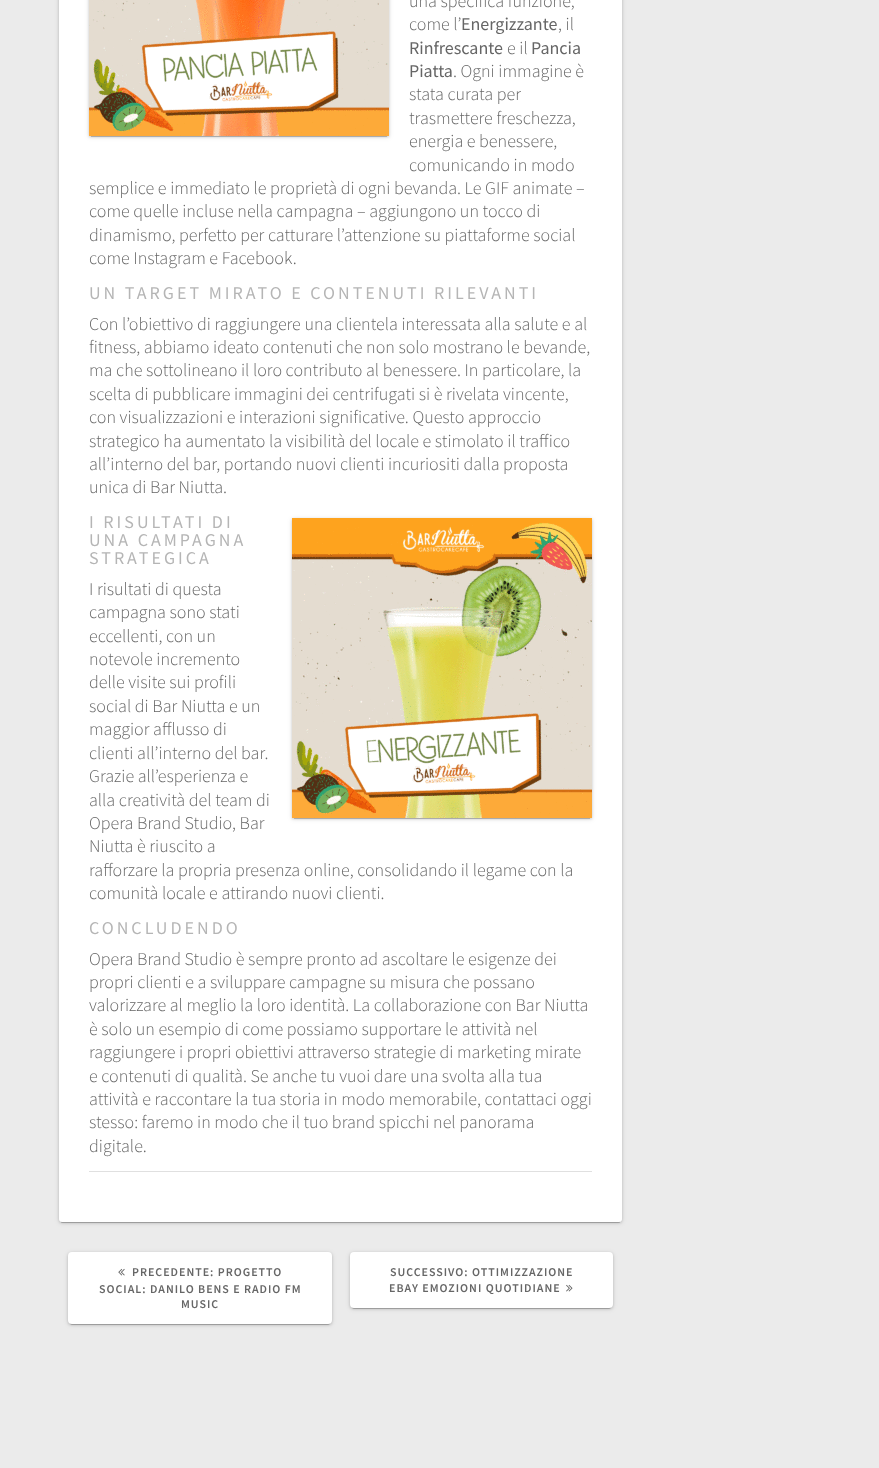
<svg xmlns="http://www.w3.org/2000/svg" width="879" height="1468">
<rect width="100%" height="100%" fill="#ebebeb"/>
<rect x="59" y="-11" width="563" height="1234" rx="3" fill="#0000001f" filter="blur(2.5px)"/>
<rect x="61" y="-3" width="559" height="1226" rx="1" fill="#00000033" filter="blur(0.5px)"/>
<rect x="59" y="-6" width="563" height="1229" rx="3" fill="#00000024" filter="blur(1px)"/>
<rect x="59" y="-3" width="563" height="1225" rx="3" fill="#fff"/>
<rect x="89" y="1171" width="503" height="1" fill="#e0e0e0"/>
<rect x="89" y="-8" width="300" height="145" fill="#0000001f" filter="blur(2.5px)"/>
<rect x="91" y="-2" width="296" height="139" fill="#00000033" filter="blur(0.5px)"/>
<rect x="89" y="-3" width="300" height="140" fill="#00000024" filter="blur(1px)"/>
<image x="89" y="0" width="300" height="136" href="media/1.png"/>
<text x="409" y="7" style="font-family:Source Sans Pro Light;font-size:18px;font-weight:300;fill:#666">una specifica funzione,</text>
<text x="409" y="30" style="font-family:Source Sans Pro Light;font-size:18px;font-weight:300;fill:#666">come l’</text>
<text x="461" y="30" style="font-family:Source Sans Pro;font-size:18px;fill:#666">Energizzante</text>
<text x="558" y="30" style="font-family:Source Sans Pro Light;font-size:18px;font-weight:300;fill:#666">, il</text>
<text x="409" y="54" style="font-family:Source Sans Pro;font-size:18px;fill:#666">Rinfrescante</text>
<text x="507" y="54" style="font-family:Source Sans Pro Light;font-size:18px;font-weight:300;fill:#666">e il</text>
<text x="531" y="54" style="font-family:Source Sans Pro;font-size:18px;fill:#666">Pancia</text>
<text x="409" y="77" style="font-family:Source Sans Pro;font-size:18px;fill:#666">Piatta</text>
<text x="453" y="77" style="font-family:Source Sans Pro Light;font-size:18px;font-weight:300;fill:#666">. Ogni immagine è</text>
<text x="409" y="100" style="font-family:Source Sans Pro Light;font-size:18px;font-weight:300;fill:#666">stata curata per</text>
<text x="409" y="124" style="font-family:Source Sans Pro Light;font-size:18px;font-weight:300;fill:#666">trasmettere freschezza,</text>
<text x="409" y="147" style="font-family:Source Sans Pro Light;font-size:18px;font-weight:300;fill:#666">energia e benessere,</text>
<text x="409" y="171" style="font-family:Source Sans Pro Light;font-size:18px;font-weight:300;fill:#666">comunicando in modo</text>
<text x="89" y="194" style="font-family:Source Sans Pro Light;font-size:18px;font-weight:300;fill:#666">semplice e immediato le proprietà di ogni bevanda. Le GIF animate –</text>
<text x="89" y="217" style="font-family:Source Sans Pro Light;font-size:18px;font-weight:300;fill:#666">come quelle incluse nella campagna – aggiungono un tocco di</text>
<text x="89" y="241" style="font-family:Source Sans Pro Light;font-size:18px;font-weight:300;fill:#666">dinamismo, perfetto per catturare l’attenzione su piattaforme social</text>
<text x="89" y="264" style="font-family:Source Sans Pro Light;font-size:18px;font-weight:300;fill:#666">come Instagram e Facebook.</text>
<text x="89" y="299" style="font-family:Source Sans Pro;font-size:18px;letter-spacing:3px;fill:#b5b5b5">UN TARGET MIRATO E CONTENUTI RILEVANTI</text>
<text x="89" y="330" style="font-family:Source Sans Pro Light;font-size:18px;font-weight:300;fill:#666">Con l’obiettivo di raggiungere una clientela interessata alla salute e al</text>
<text x="89" y="353" style="font-family:Source Sans Pro Light;font-size:18px;font-weight:300;fill:#666">fitness, abbiamo ideato contenuti che non solo mostrano le bevande,</text>
<text x="89" y="376" style="font-family:Source Sans Pro Light;font-size:18px;font-weight:300;fill:#666">ma che sottolineano il loro contributo al benessere. In particolare, la</text>
<text x="89" y="400" style="font-family:Source Sans Pro Light;font-size:18px;font-weight:300;fill:#666">scelta di pubblicare immagini dei centrifugati si è rivelata vincente,</text>
<text x="89" y="423" style="font-family:Source Sans Pro Light;font-size:18px;font-weight:300;fill:#666">con visualizzazioni e interazioni significative. Questo approccio</text>
<text x="89" y="447" style="font-family:Source Sans Pro Light;font-size:18px;font-weight:300;fill:#666">strategico ha aumentato la visibilità del locale e stimolato il traffico</text>
<text x="89" y="470" style="font-family:Source Sans Pro Light;font-size:18px;font-weight:300;fill:#666">all’interno del bar, portando nuovi clienti incuriositi dalla proposta</text>
<text x="89" y="493" style="font-family:Source Sans Pro Light;font-size:18px;font-weight:300;fill:#666">unica di Bar Niutta.</text>
<text x="89" y="528" style="font-family:Source Sans Pro;font-size:18px;letter-spacing:3px;fill:#b5b5b5">I RISULTATI DI</text>
<rect x="292" y="519" width="300" height="300" fill="#0000001f" filter="blur(2.5px)"/>
<rect x="294" y="523" width="296" height="296" fill="#00000033" filter="blur(0.5px)"/>
<rect x="292" y="519" width="300" height="300" fill="#00000024" filter="blur(1px)"/>
<image x="292" y="518" width="300" height="300" href="media/2.png"/>
<text x="89" y="546" style="font-family:Source Sans Pro;font-size:18px;letter-spacing:3px;fill:#b5b5b5">UNA CAMPAGNA</text>
<text x="89" y="564" style="font-family:Source Sans Pro;font-size:18px;letter-spacing:3px;fill:#b5b5b5">STRATEGICA</text>
<text x="89" y="595" style="font-family:Source Sans Pro Light;font-size:18px;font-weight:300;fill:#666">I risultati di questa</text>
<text x="89" y="618" style="font-family:Source Sans Pro Light;font-size:18px;font-weight:300;fill:#666">campagna sono stati</text>
<text x="89" y="642" style="font-family:Source Sans Pro Light;font-size:18px;font-weight:300;fill:#666">eccellenti, con un</text>
<text x="89" y="665" style="font-family:Source Sans Pro Light;font-size:18px;font-weight:300;fill:#666">notevole incremento</text>
<text x="89" y="688" style="font-family:Source Sans Pro Light;font-size:18px;font-weight:300;fill:#666">delle visite sui profili</text>
<text x="89" y="712" style="font-family:Source Sans Pro Light;font-size:18px;font-weight:300;fill:#666">social di Bar Niutta e un</text>
<text x="89" y="735" style="font-family:Source Sans Pro Light;font-size:18px;font-weight:300;fill:#666">maggior afflusso di</text>
<text x="89" y="759" style="font-family:Source Sans Pro Light;font-size:18px;font-weight:300;fill:#666">clienti all’interno del bar.</text>
<text x="89" y="782" style="font-family:Source Sans Pro Light;font-size:18px;font-weight:300;fill:#666">Grazie all’esperienza e</text>
<text x="89" y="806" style="font-family:Source Sans Pro Light;font-size:18px;font-weight:300;fill:#666">alla creatività del team di</text>
<text x="89" y="829" style="font-family:Source Sans Pro Light;font-size:18px;font-weight:300;fill:#666">Opera Brand Studio, Bar</text>
<text x="89" y="852" style="font-family:Source Sans Pro Light;font-size:18px;font-weight:300;fill:#666">Niutta è riuscito a</text>
<text x="89" y="876" style="font-family:Source Sans Pro Light;font-size:18px;font-weight:300;fill:#666">rafforzare la propria presenza online, consolidando il legame con la</text>
<text x="89" y="899" style="font-family:Source Sans Pro Light;font-size:18px;font-weight:300;fill:#666">comunità locale e attirando nuovi clienti.</text>
<text x="89" y="934" style="font-family:Source Sans Pro;font-size:18px;letter-spacing:3px;fill:#b5b5b5">CONCLUDENDO</text>
<text x="89" y="965" style="font-family:Source Sans Pro Light;font-size:18px;font-weight:300;fill:#666">Opera Brand Studio è sempre pronto ad ascoltare le esigenze dei</text>
<text x="89" y="988" style="font-family:Source Sans Pro Light;font-size:18px;font-weight:300;fill:#666">propri clienti e a sviluppare campagne su misura che possano</text>
<text x="89" y="1011" style="font-family:Source Sans Pro Light;font-size:18px;font-weight:300;fill:#666">valorizzare al meglio la loro identità. La collaborazione con Bar Niutta</text>
<text x="89" y="1035" style="font-family:Source Sans Pro Light;font-size:18px;font-weight:300;fill:#666">è solo un esempio di come possiamo supportare le attività nel</text>
<text x="89" y="1058" style="font-family:Source Sans Pro Light;font-size:18px;font-weight:300;fill:#666">raggiungere i propri obiettivi attraverso strategie di marketing mirate</text>
<text x="89" y="1082" style="font-family:Source Sans Pro Light;font-size:18px;font-weight:300;fill:#666">e contenuti di qualità. Se anche tu vuoi dare una svolta alla tua</text>
<text x="89" y="1105" style="font-family:Source Sans Pro Light;font-size:18px;font-weight:300;fill:#666">attività e raccontare la tua storia in modo memorabile, contattaci oggi</text>
<text x="89" y="1128" style="font-family:Source Sans Pro Light;font-size:18px;font-weight:300;fill:#666">stesso: faremo in modo che il tuo brand spicchi nel panorama</text>
<text x="89" y="1152" style="font-family:Source Sans Pro Light;font-size:18px;font-weight:300;fill:#666">digitale.</text>
<rect x="68" y="1253" width="264" height="72" rx="4" fill="#0000001f" filter="blur(2.5px)"/>
<rect x="70" y="1257" width="260" height="68" rx="2" fill="#00000033" filter="blur(0.5px)"/>
<rect x="68" y="1253" width="264" height="72" rx="4" fill="#00000024" filter="blur(1px)"/>
<rect x="68" y="1252" width="264" height="72" rx="4" fill="#fff"/>
<image x="118" y="1268" width="7" height="8" href="media/3.png"/>
<text x="132" y="1276" style="font-family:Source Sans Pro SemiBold;font-size:11.9px;font-weight:600;letter-spacing:1px;fill:#666">PRECEDENTE: PROGETTO</text>
<text x="99" y="1293" style="font-family:Source Sans Pro SemiBold;font-size:11.9px;font-weight:600;letter-spacing:1px;fill:#666">SOCIAL: DANILO BENS E RADIO FM</text>
<text x="181" y="1308" style="font-family:Source Sans Pro SemiBold;font-size:11.9px;font-weight:600;letter-spacing:1px;fill:#666">MUSIC</text>
<rect x="350" y="1253" width="263" height="56" rx="4" fill="#0000001f" filter="blur(2.5px)"/>
<rect x="352" y="1257" width="259" height="52" rx="2" fill="#00000033" filter="blur(0.5px)"/>
<rect x="350" y="1253" width="263" height="56" rx="4" fill="#00000024" filter="blur(1px)"/>
<rect x="350" y="1252" width="263" height="56" rx="4" fill="#fff"/>
<text x="390" y="1276" style="font-family:Source Sans Pro SemiBold;font-size:11.9px;font-weight:600;letter-spacing:1px;fill:#666">SUCCESSIVO: OTTIMIZZAZIONE</text>
<text x="389" y="1292" style="font-family:Source Sans Pro SemiBold;font-size:11.9px;font-weight:600;letter-spacing:1px;fill:#666">EBAY EMOZIONI QUOTIDIANE</text>
<image x="566" y="1284" width="7" height="8" href="media/4.png"/>
</svg>
